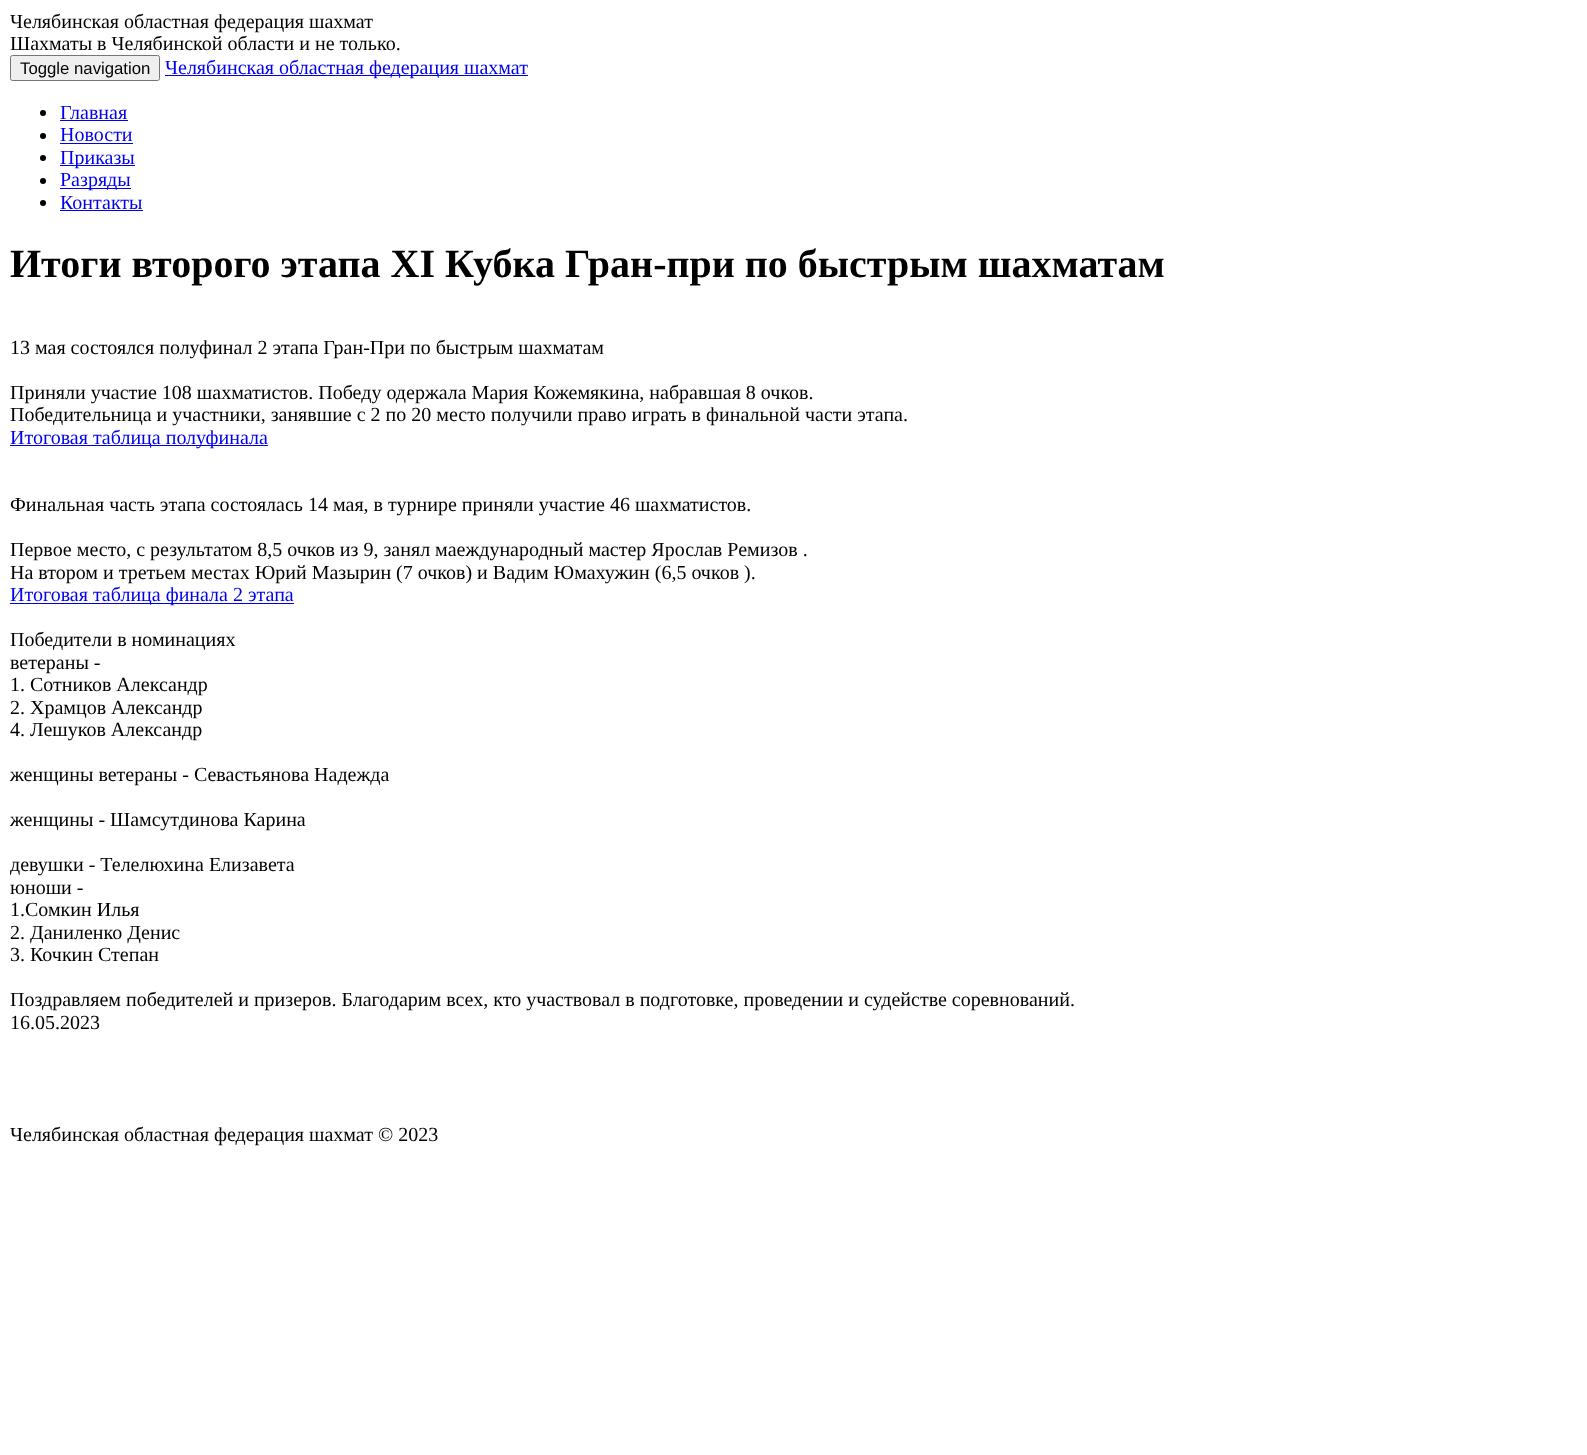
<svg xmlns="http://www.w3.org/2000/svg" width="1587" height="1455">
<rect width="100%" height="100%" fill="#fff"/>
<text x="10" y="28" style="font-family:Liberation Serif;font-size:20px;fill:#000">Челябинская областная федерация шахмат</text>
<text x="10" y="50" style="font-family:Liberation Serif;font-size:20px;fill:#000">Шахматы в Челябинской области и не только.</text>
<rect x="10.5" y="55.5" width="149" height="25" rx="2" fill="#efefef" stroke="#767676"/>
<text x="20" y="74" style="font-family:Liberation Sans;font-size:16.75px;fill:#000">Toggle navigation</text>
<rect x="165" y="75" width="363" height="1" fill="#00e"/>
<text x="165" y="74" style="font-family:Liberation Serif;font-size:20px;fill:#00e">Челябинская областная федерация шахмат</text>
<circle cx="43" cy="113" r="3" fill="#000"/>
<text x="60" y="119" style="font-family:Liberation Serif;font-size:20px;fill:#00e">Главная</text>
<rect x="60" y="120" width="68" height="1" fill="#00e"/>
<circle cx="43" cy="136" r="3" fill="#000"/>
<text x="60" y="141" style="font-family:Liberation Serif;font-size:20px;fill:#00e">Новости</text>
<rect x="60" y="143" width="73" height="1" fill="#00e"/>
<circle cx="43" cy="158" r="3" fill="#000"/>
<rect x="60" y="165" width="75" height="1" fill="#00e"/>
<text x="60" y="164" style="font-family:Liberation Serif;font-size:20px;fill:#00e">Приказы</text>
<circle cx="43" cy="181" r="3" fill="#000"/>
<rect x="60" y="188" width="71" height="1" fill="#00e"/>
<text x="60" y="186" style="font-family:Liberation Serif;font-size:20px;fill:#00e">Разряды</text>
<circle cx="43" cy="203" r="3" fill="#000"/>
<text x="60" y="209" style="font-family:Liberation Serif;font-size:20px;fill:#00e">Контакты</text>
<rect x="60" y="210" width="83" height="1" fill="#00e"/>
<text x="10" y="277" style="font-family:Liberation Serif;font-size:40px;font-weight:bold;fill:#000">Итоги второго этапа XI Кубка Гран-при по быстрым шахматам</text>
<text x="10" y="354" style="font-family:Liberation Serif;font-size:20px;fill:#000">13 мая состоялся полуфинал 2 этапа Гран-При по быстрым шахматам</text>
<text x="10" y="399" style="font-family:Liberation Serif;font-size:20px;fill:#000">Приняли участие 108 шахматистов. Победу одержала Мария Кожемякина, набравшая 8 очков.</text>
<text x="10" y="421" style="font-family:Liberation Serif;font-size:20px;fill:#000">Победительница и участники, занявшие с 2 по 20 место получили право играть в финальной части этапа.</text>
<rect x="10" y="445" width="258" height="1" fill="#00e"/>
<text x="10" y="444" style="font-family:Liberation Serif;font-size:20px;fill:#00e">Итоговая таблица полуфинала</text>
<text x="10" y="511" style="font-family:Liberation Serif;font-size:20px;fill:#000">Финальная часть этапа состоялась 14 мая, в турнире приняли участие 46 шахматистов.</text>
<text x="10" y="556" style="font-family:Liberation Serif;font-size:20px;fill:#000">Первое место, с результатом 8,5 очков из 9, занял маеждународный мастер Ярослав Ремизов .</text>
<text x="10" y="579" style="font-family:Liberation Serif;font-size:20px;fill:#000">На втором и третьем местах Юрий Мазырин (7 очков) и Вадим Юмахужин (6,5 очков ).</text>
<rect x="10" y="603" width="284" height="1" fill="#00e"/>
<text x="10" y="601" style="font-family:Liberation Serif;font-size:20px;fill:#00e">Итоговая таблица финала 2 этапа</text>
<text x="10" y="646" style="font-family:Liberation Serif;font-size:20px;fill:#000">Победители в номинациях</text>
<text x="10" y="669" style="font-family:Liberation Serif;font-size:20px;fill:#000">ветераны -</text>
<text x="10" y="691" style="font-family:Liberation Serif;font-size:20px;fill:#000">1. Сотников Александр</text>
<text x="10" y="714" style="font-family:Liberation Serif;font-size:20px;fill:#000">2. Храмцов Александр</text>
<text x="10" y="736" style="font-family:Liberation Serif;font-size:20px;fill:#000">4. Лешуков Александр</text>
<text x="10" y="781" style="font-family:Liberation Serif;font-size:20px;fill:#000">женщины ветераны - Севастьянова Надежда</text>
<text x="10" y="826" style="font-family:Liberation Serif;font-size:20px;fill:#000">женщины - Шамсутдинова Карина</text>
<text x="10" y="871" style="font-family:Liberation Serif;font-size:20px;fill:#000">девушки - Телелюхина Елизавета</text>
<text x="10" y="894" style="font-family:Liberation Serif;font-size:20px;fill:#000">юноши -</text>
<text x="10" y="916" style="font-family:Liberation Serif;font-size:20px;fill:#000">1.Сомкин Илья</text>
<text x="10" y="939" style="font-family:Liberation Serif;font-size:20px;fill:#000">2. Даниленко Денис</text>
<text x="10" y="961" style="font-family:Liberation Serif;font-size:20px;fill:#000">3. Кочкин Степан</text>
<text x="10" y="1006" style="font-family:Liberation Serif;font-size:20px;fill:#000">Поздравляем победителей и призеров. Благодарим всех, кто участвовал в подготовке, проведении и судействе соревнований.</text>
<text x="10" y="1029" style="font-family:Liberation Serif;font-size:20px;fill:#000">16.05.2023</text>
<text x="10" y="1141" style="font-family:Liberation Serif;font-size:20px;fill:#000">Челябинская областная федерация шахмат © 2023</text>
</svg>
